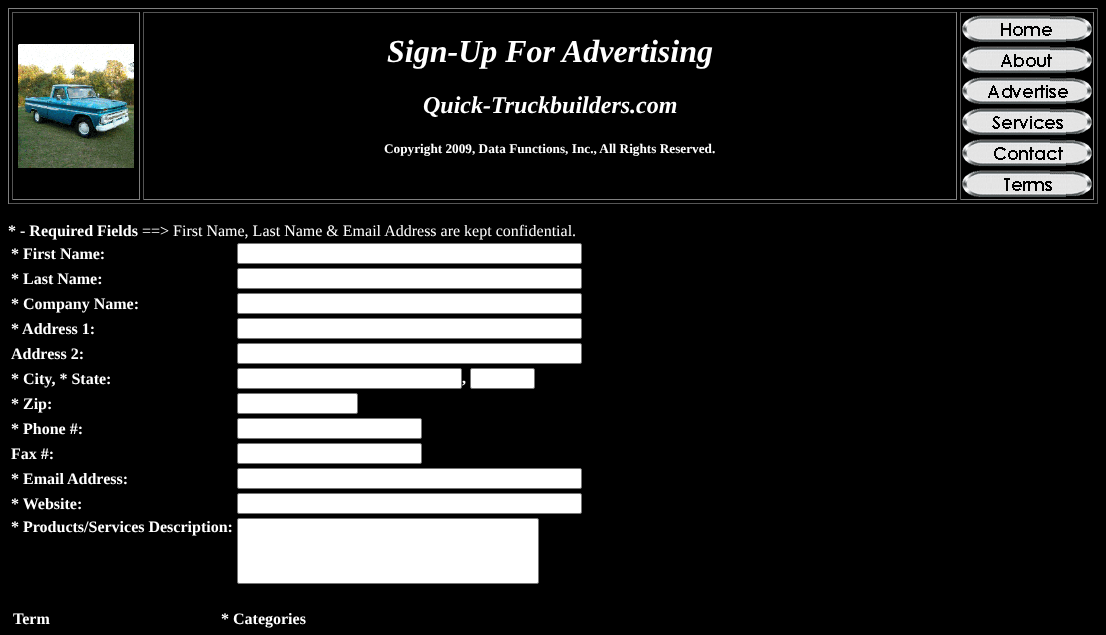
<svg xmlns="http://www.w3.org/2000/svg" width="1106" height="635">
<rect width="100%" height="100%" fill="#000"/>
<rect x="8" y="8" width="1090" height="1" fill="#808080"/>
<rect x="1097" y="8" width="1" height="196" fill="#555"/>
<rect x="8" y="203" width="1090" height="1" fill="#555"/>
<rect x="8" y="8" width="1" height="196" fill="#808080"/>
<rect x="12" y="12" width="128" height="1" fill="#555"/>
<rect x="139" y="12" width="1" height="188" fill="#808080"/>
<rect x="12" y="199" width="128" height="1" fill="#808080"/>
<rect x="12" y="12" width="1" height="188" fill="#555"/>
<image x="18" y="44" width="116" height="124" href="media/1.png"/>
<rect x="143" y="12" width="814" height="1" fill="#555"/>
<rect x="956" y="12" width="1" height="188" fill="#808080"/>
<rect x="143" y="199" width="814" height="1" fill="#808080"/>
<rect x="143" y="12" width="1" height="188" fill="#555"/>
<text x="387" y="62" style="font-family:Liberation Serif;font-size:32px;font-weight:bold;font-style:italic;fill:#fff">Sign-Up For Advertising</text>
<text x="423" y="113" style="font-family:Liberation Serif;font-size:24px;font-weight:bold;font-style:italic;fill:#fff">Quick-Truckbuilders.com</text>
<text x="384" y="153" style="font-family:Liberation Serif;font-size:13.25px;font-weight:bold;fill:#fff">Copyright 2009, Data Functions, Inc., All Rights Reserved.</text>
<rect x="960" y="12" width="134" height="1" fill="#555"/>
<rect x="1093" y="12" width="1" height="188" fill="#808080"/>
<rect x="960" y="199" width="134" height="1" fill="#808080"/>
<rect x="960" y="12" width="1" height="188" fill="#555"/>
<image x="962" y="14" width="130" height="29" href="media/2.png"/>
<image x="962" y="45" width="130" height="29" href="media/3.png"/>
<image x="962" y="76" width="130" height="29" href="media/4.png"/>
<image x="962" y="107" width="130" height="29" href="media/5.png"/>
<image x="962" y="138" width="130" height="29" href="media/6.png"/>
<image x="962" y="169" width="130" height="29" href="media/7.png"/>
<text x="8" y="236" style="font-family:Liberation Serif;font-size:16px;font-weight:bold;fill:#fff">* - Required Fields</text>
<text x="142" y="236" style="font-family:Liberation Serif;font-size:16px;fill:#fff">==&gt; First Name, Last Name &amp; Email Address are kept confidential.</text>
<text x="11" y="259" style="font-family:Liberation Serif;font-size:16px;font-weight:bold;fill:#fff">* First Name:</text>
<rect x="237.5" y="243.5" width="344" height="20" rx="1.5" fill="#fff" stroke="#767676"/>
<text x="11" y="284" style="font-family:Liberation Serif;font-size:16px;font-weight:bold;fill:#fff">* Last Name:</text>
<rect x="237.5" y="268.5" width="344" height="20" rx="1.5" fill="#fff" stroke="#767676"/>
<text x="11" y="309" style="font-family:Liberation Serif;font-size:16px;font-weight:bold;fill:#fff">* Company Name:</text>
<rect x="237.5" y="293.5" width="344" height="20" rx="1.5" fill="#fff" stroke="#767676"/>
<text x="11" y="334" style="font-family:Liberation Serif;font-size:16px;font-weight:bold;fill:#fff">* Address 1:</text>
<rect x="237.5" y="318.5" width="344" height="20" rx="1.5" fill="#fff" stroke="#767676"/>
<text x="11" y="359" style="font-family:Liberation Serif;font-size:16px;font-weight:bold;fill:#fff">Address 2:</text>
<rect x="237.5" y="343.5" width="344" height="20" rx="1.5" fill="#fff" stroke="#767676"/>
<text x="11" y="384" style="font-family:Liberation Serif;font-size:16px;font-weight:bold;fill:#fff">* City, * State:</text>
<rect x="237.5" y="368.5" width="224" height="20" rx="1.5" fill="#fff" stroke="#767676"/>
<text x="462" y="383" style="font-family:Liberation Serif;font-size:16px;font-weight:bold;fill:#fff">,</text>
<rect x="470.5" y="368.5" width="64" height="20" rx="1.5" fill="#fff" stroke="#767676"/>
<text x="11" y="409" style="font-family:Liberation Serif;font-size:16px;font-weight:bold;fill:#fff">* Zip:</text>
<rect x="237.5" y="393.5" width="120" height="20" rx="1.5" fill="#fff" stroke="#767676"/>
<text x="11" y="434" style="font-family:Liberation Serif;font-size:16px;font-weight:bold;fill:#fff">* Phone #:</text>
<rect x="237.5" y="418.5" width="184" height="20" rx="1.5" fill="#fff" stroke="#767676"/>
<text x="11" y="459" style="font-family:Liberation Serif;font-size:16px;font-weight:bold;fill:#fff">Fax #:</text>
<rect x="237.5" y="443.5" width="184" height="20" rx="1.5" fill="#fff" stroke="#767676"/>
<text x="11" y="484" style="font-family:Liberation Serif;font-size:16px;font-weight:bold;fill:#fff">* Email Address:</text>
<rect x="237.5" y="468.5" width="344" height="20" rx="1.5" fill="#fff" stroke="#767676"/>
<text x="11" y="509" style="font-family:Liberation Serif;font-size:16px;font-weight:bold;fill:#fff">* Website:</text>
<rect x="237.5" y="493.5" width="344" height="20" rx="1.5" fill="#fff" stroke="#767676"/>
<text x="11" y="532" style="font-family:Liberation Serif;font-size:16px;font-weight:bold;fill:#fff">* Products/Services Description:</text>
<rect x="237.5" y="518.5" width="301" height="65" rx="1.5" fill="#fff" stroke="#767676"/>
<text x="13" y="624" style="font-family:Liberation Serif;font-size:16px;font-weight:bold;fill:#fff">Term</text>
<text x="221" y="624" style="font-family:Liberation Serif;font-size:16px;font-weight:bold;fill:#fff">* Categories</text>
</svg>
